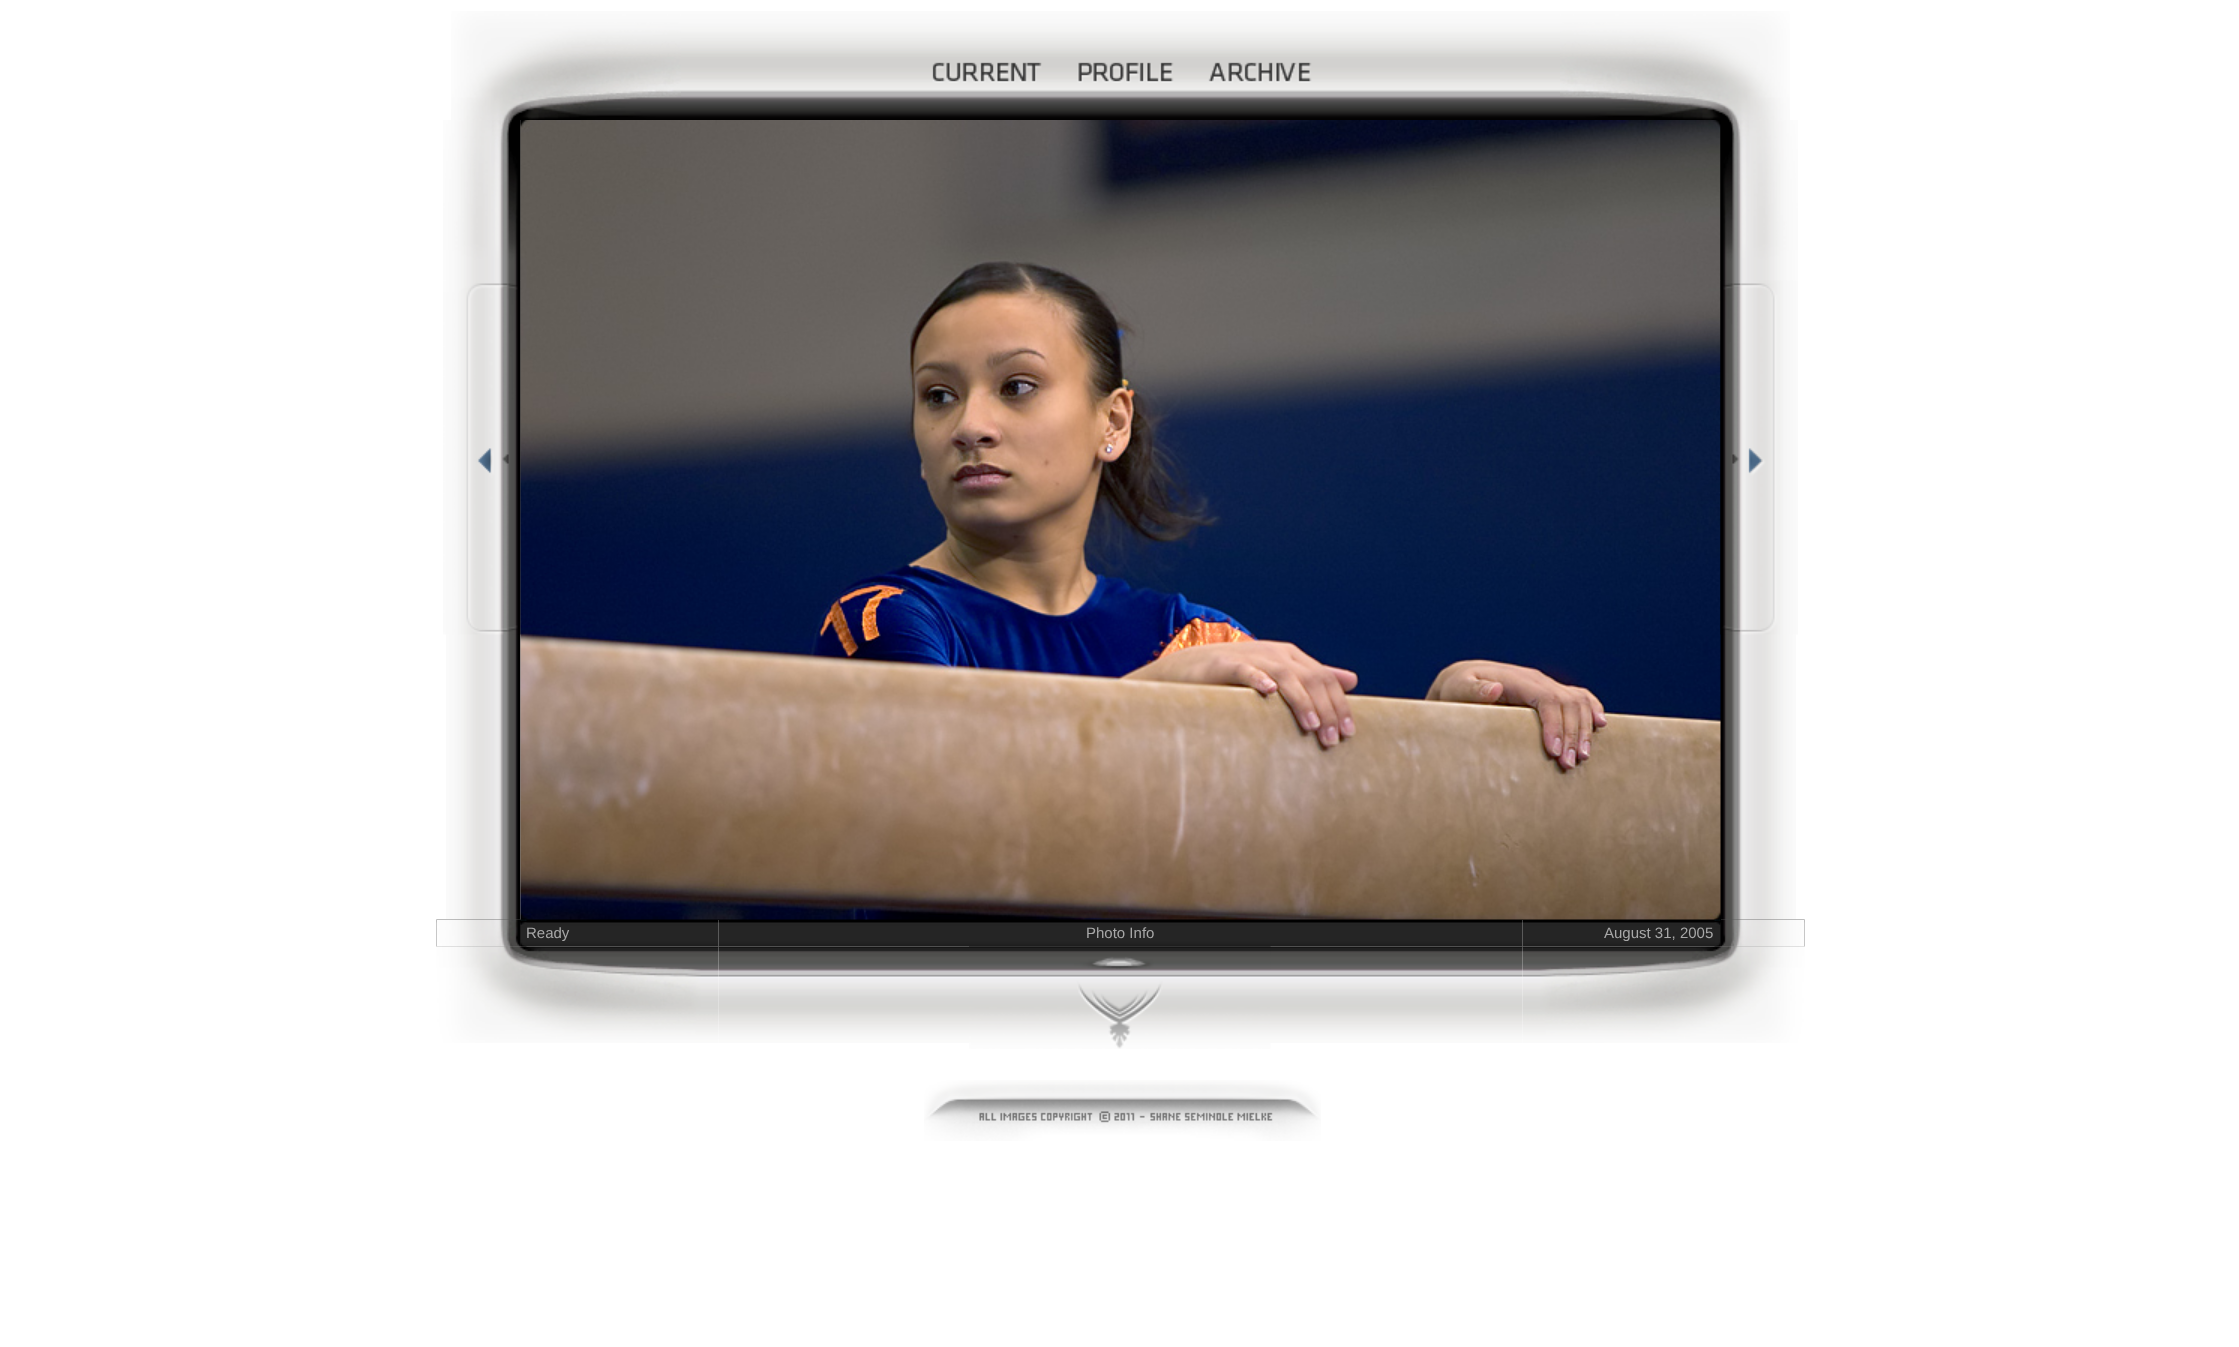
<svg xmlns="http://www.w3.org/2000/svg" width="2239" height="1347">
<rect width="100%" height="100%" fill="#fff"/>
<image x="451" y="11" width="230" height="109" href="media/1.png"/>
<image x="681" y="11" width="879" height="109" href="media/2.png"/>
<image x="932" y="62" width="110" height="21" href="media/3.png"/>
<image x="1077" y="62" width="97" height="21" href="media/4.png"/>
<image x="1208" y="62" width="104" height="21" href="media/5.png"/>
<image x="1560" y="11" width="230" height="109" href="media/6.png"/>
<image x="446" y="120" width="75" height="800" href="media/7.png"/>
<image x="443" y="120" width="78" height="161" href="media/8.png"/>
<image x="443" y="280" width="78" height="355" href="media/9.png"/>
<rect x="521" y="120" width="1200" height="800" fill="#000"/>
<image x="436" y="919" width="283" height="28" href="media/14.png"/>
<image x="1721" y="280" width="75" height="640" href="media/11.png"/>
<image x="718" y="920" width="805" height="27" href="media/17.png"/>
<image x="1522" y="919" width="283" height="28" href="media/18.png"/>
<image x="520" y="120" width="1201" height="800" href="media/10.png"/>
<image x="1720" y="120" width="78" height="161" href="media/12.png"/>
<image x="1720" y="280" width="78" height="355" href="media/13.png"/>
<image x="436" y="919" width="85" height="28" href="media/15.png"/>
<image x="520" y="919" width="7" height="28" href="media/16.png"/>
<text x="526" y="938" style="font-family:Liberation Sans;font-size:15px;fill:#a8a8a8">Ready</text>
<text x="1086" y="938" style="font-family:Liberation Sans;font-size:15px;fill:#a8a8a8">Photo Info</text>
<text x="1604" y="938" style="font-family:Liberation Sans;font-size:15px;fill:#a8a8a8">August 31, 2005</text>
<image x="1714" y="919" width="7" height="28" href="media/19.png"/>
<image x="1720" y="919" width="85" height="28" href="media/20.png"/>
<image x="718" y="946" width="805" height="97" href="media/22.png"/>
<image x="436" y="946" width="283" height="97" href="media/21.png"/>
<image x="969" y="946" width="302" height="103" href="media/23.png"/>
<image x="1522" y="946" width="283" height="97" href="media/24.png"/>
<image x="924" y="1080" width="397" height="61" href="media/25.png"/>
</svg>
